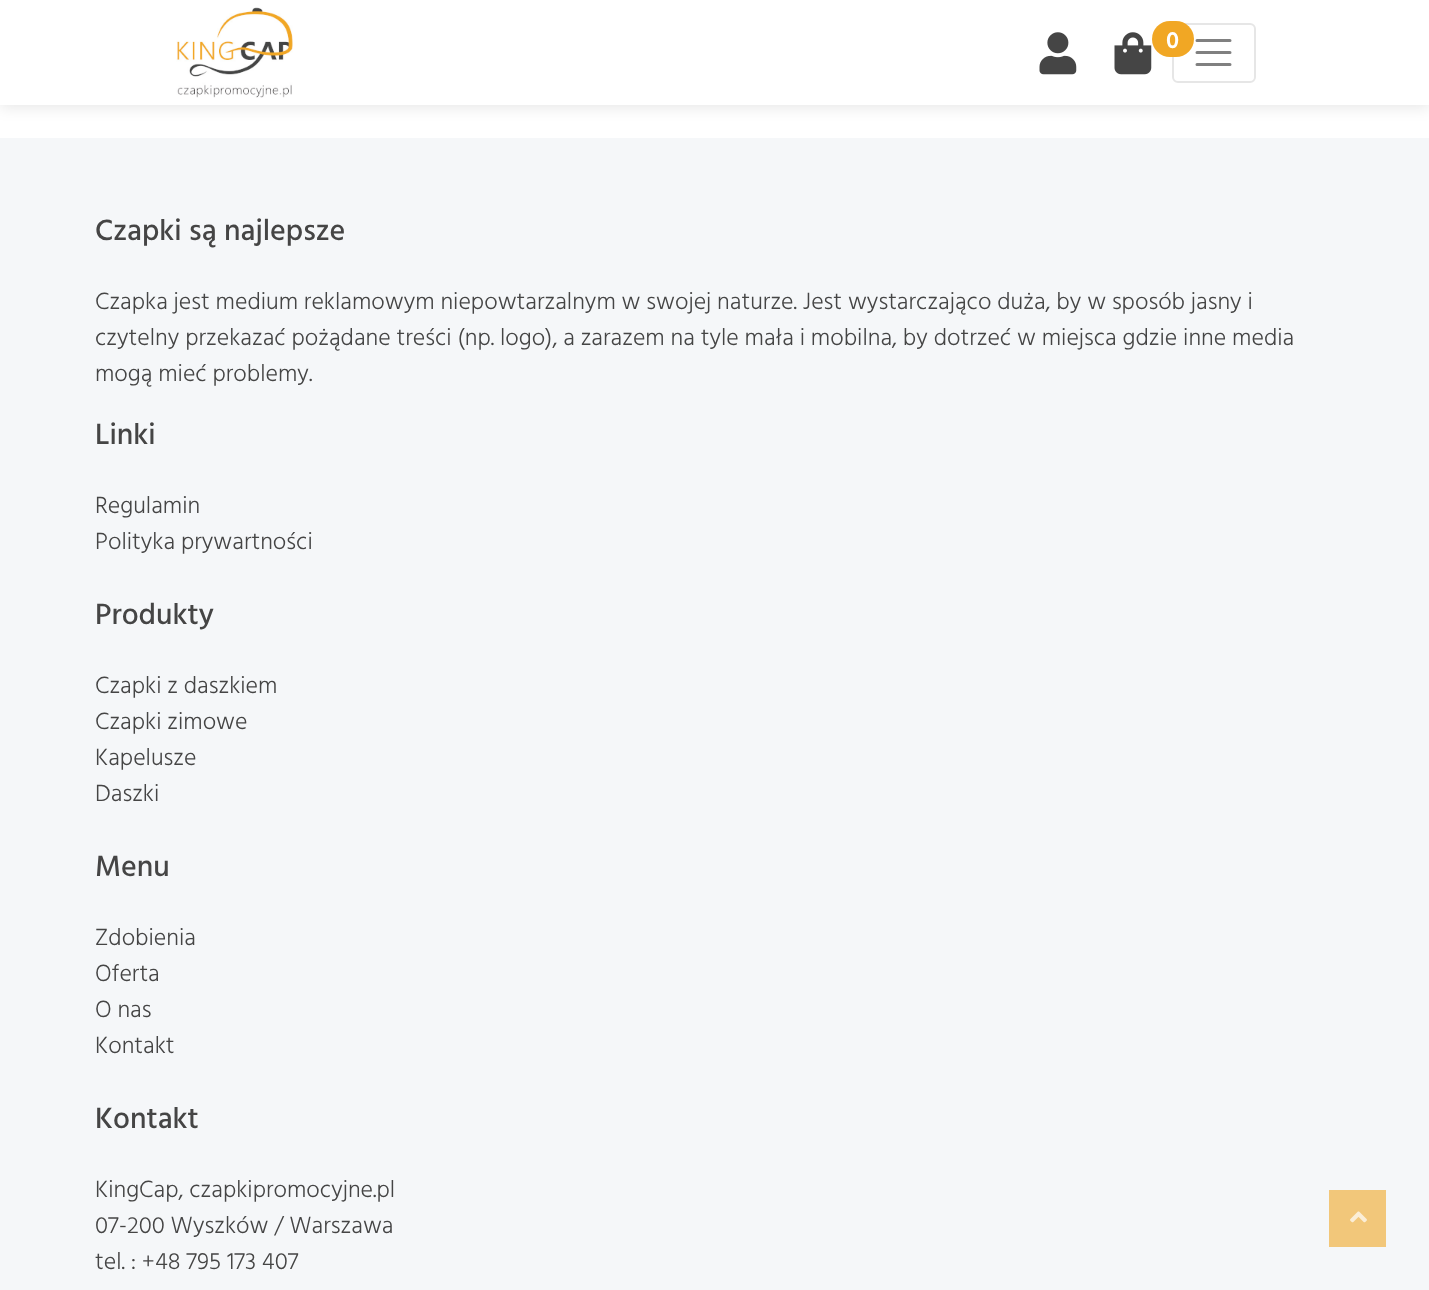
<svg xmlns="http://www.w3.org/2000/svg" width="1429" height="1290">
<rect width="100%" height="100%" fill="#fff"/>
<rect y="2" width="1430" height="105" fill="#0000001a" filter="blur(7.5px)"/>
<rect width="1429" height="105" fill="#fff"/>
<image x="176" y="7" width="117" height="91" href="media/1.png"/>
<rect x="1173" y="24" width="82" height="58" rx="5" fill="none" stroke="#e6e6e6" stroke-width="2"/>
<path d="M1197 40.5h33m-33 12h33m-33 12h33" fill="none" stroke="#808080" stroke-width="3" stroke-linecap="round"/>
<image x="1039" y="32" width="38" height="43" href="media/2.png"/>
<image x="1114" y="32" width="38" height="43" href="media/3.png"/>
<rect x="1152" y="21" width="42" height="36" rx="18" fill="#f1a724"/>
<text x="1166" y="48" style="font-family:Hind Vadodara;font-size:24px;font-weight:600;fill:#fff">0</text>
<rect y="138" width="1429" height="1152" fill="#f5f7f9"/>
<text x="95" y="240" style="font-family:Hind Vadodara;font-size:30px;font-weight:500;fill:#454545">Czapki są najlepsze</text>
<text x="95" y="309" style="font-family:Hind Vadodara;font-size:24px;font-weight:300;fill:#454545">Czapka jest medium reklamowym niepowtarzalnym w swojej naturze. Jest wystarczająco duża, by w sposób jasny i</text>
<text x="95" y="345" style="font-family:Hind Vadodara;font-size:24px;font-weight:300;fill:#454545">czytelny przekazać pożądane treści (np. logo), a zarazem na tyle mała i mobilna, by dotrzeć w miejsca gdzie inne media</text>
<text x="95" y="381" style="font-family:Hind Vadodara;font-size:24px;font-weight:300;fill:#454545">mogą mieć problemy.</text>
<text x="95" y="444" style="font-family:Hind Vadodara;font-size:30px;font-weight:500;fill:#454545">Linki</text>
<text x="95" y="513" style="font-family:Hind Vadodara;font-size:24px;font-weight:300;fill:#454545">Regulamin</text>
<text x="95" y="549" style="font-family:Hind Vadodara;font-size:24px;font-weight:300;fill:#454545">Polityka prywartności</text>
<text x="95" y="624" style="font-family:Hind Vadodara;font-size:30px;font-weight:500;fill:#454545">Produkty</text>
<text x="95" y="693" style="font-family:Hind Vadodara;font-size:24px;font-weight:300;fill:#454545">Czapki z daszkiem</text>
<text x="95" y="729" style="font-family:Hind Vadodara;font-size:24px;font-weight:300;fill:#454545">Czapki zimowe</text>
<text x="95" y="765" style="font-family:Hind Vadodara;font-size:24px;font-weight:300;fill:#454545">Kapelusze</text>
<text x="95" y="801" style="font-family:Hind Vadodara;font-size:24px;font-weight:300;fill:#454545">Daszki</text>
<text x="95" y="876" style="font-family:Hind Vadodara;font-size:30px;font-weight:500;fill:#454545">Menu</text>
<text x="95" y="945" style="font-family:Hind Vadodara;font-size:24px;font-weight:300;fill:#454545">Zdobienia</text>
<text x="95" y="981" style="font-family:Hind Vadodara;font-size:24px;font-weight:300;fill:#454545">Oferta</text>
<text x="95" y="1017" style="font-family:Hind Vadodara;font-size:24px;font-weight:300;fill:#454545">O nas</text>
<text x="95" y="1053" style="font-family:Hind Vadodara;font-size:24px;font-weight:300;fill:#454545">Kontakt</text>
<text x="95" y="1128" style="font-family:Hind Vadodara;font-size:30px;font-weight:500;fill:#454545">Kontakt</text>
<text x="95" y="1197" style="font-family:Hind Vadodara;font-size:24px;font-weight:300;fill:#454545">KingCap, czapkipromocyjne.pl</text>
<text x="95" y="1233" style="font-family:Hind Vadodara;font-size:24px;font-weight:300;fill:#454545">07-200 Wyszków / Warszawa</text>
<text x="95" y="1269" style="font-family:Hind Vadodara;font-size:24px;font-weight:300;fill:#454545">tel. : +48 795 173 407</text>
<rect x="1329" y="1190" width="57" height="57" fill="#f2c77a"/>
<image x="1350" y="1211" width="17" height="12" href="media/4.png"/>
</svg>
